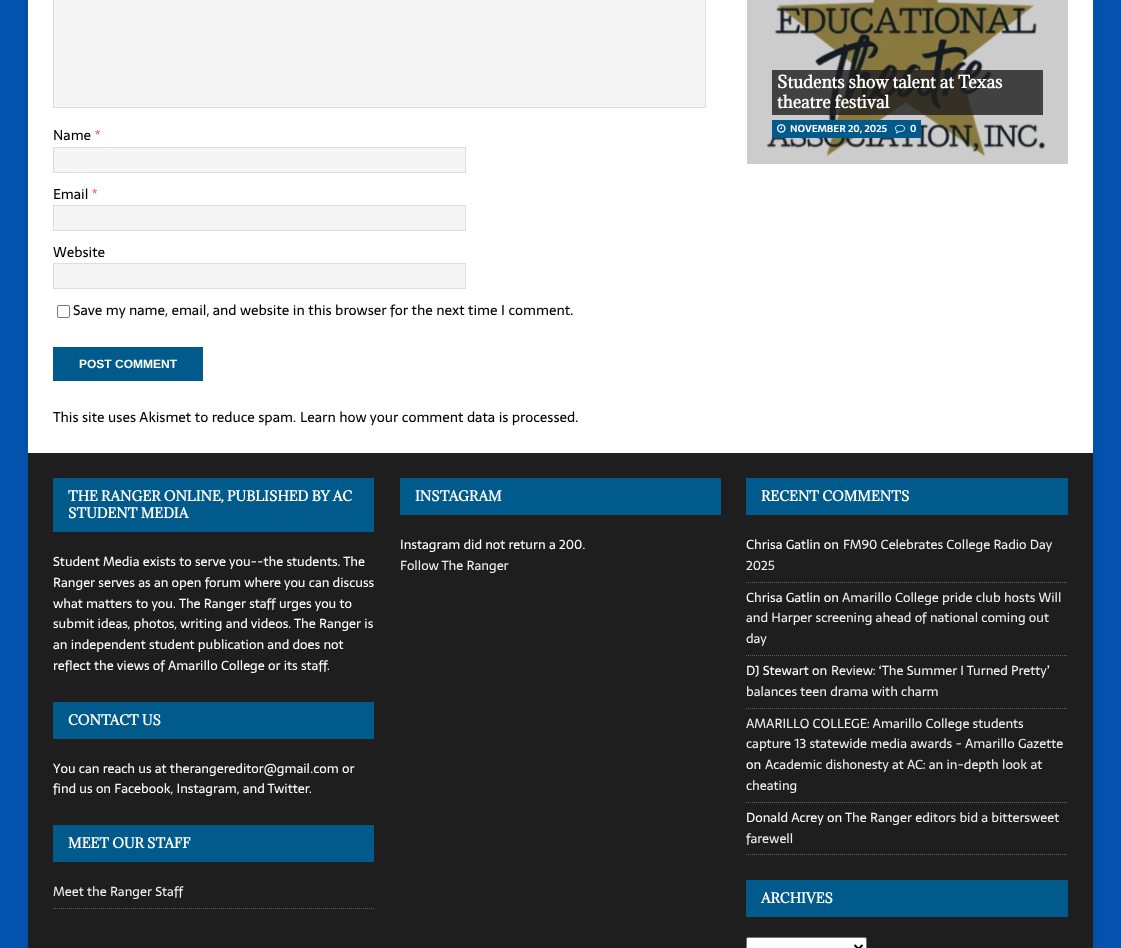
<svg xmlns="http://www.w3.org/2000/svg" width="1121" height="948">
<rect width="100%" height="100%" fill="#0353af"/>
<rect x="28" y="-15" width="1065" height="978" fill="#3232322b" filter="blur(5px)"/>
<rect x="28" width="1065" height="453" fill="#fff"/>
<rect x="747" width="321" height="164" fill="#ccc"/>
<image x="766" y="0" width="280" height="157" href="media/1.png"/>
<rect x="772" y="70" width="271" height="45" fill="#1f1e1ecc"/>
<text x="777" y="88" style="font-family:Adamina;font-size:16px;font-weight:bold;fill:#fff">Students show talent at Texas</text>
<text x="777" y="108" style="font-family:Adamina;font-size:16px;font-weight:bold;fill:#fff">theatre festival</text>
<rect x="772" y="120" width="149" height="18" fill="#005a8c"/>
<image x="777" y="124" width="9" height="9" href="media/2.png"/>
<text x="790" y="132" style="font-family:Sarala;font-size:10px;font-weight:bold;fill:#fff">NOVEMBER 20, 2025</text>
<image x="895" y="124" width="10" height="10" href="media/3.png"/>
<text x="910" y="132" style="font-family:Sarala;font-size:10px;font-weight:bold;fill:#fff">0</text>
<rect x="53.5" y="-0.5" width="652" height="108" fill="#f5f5f5" stroke="#ddd"/>
<text x="53" y="140" style="font-family:Sarala;font-size:14px;fill:#000">Name</text>
<text x="95" y="140" style="font-family:Sarala;font-size:14px;fill:#e64946">*</text>
<rect x="53.5" y="147.5" width="412" height="25" fill="#f5f5f5" stroke="#ddd"/>
<text x="53" y="199" style="font-family:Sarala;font-size:14px;fill:#000">Email</text>
<text x="92" y="199" style="font-family:Sarala;font-size:14px;fill:#e64946">*</text>
<rect x="53.5" y="205.5" width="412" height="25" fill="#f5f5f5" stroke="#ddd"/>
<text x="53" y="257" style="font-family:Sarala;font-size:14px;fill:#000">Website</text>
<rect x="53.5" y="263.5" width="412" height="25" fill="#f5f5f5" stroke="#ddd"/>
<rect x="57.5" y="305.5" width="12" height="12" rx="1.5" fill="none" stroke="#767676"/>
<text x="73" y="315" style="font-family:Sarala;font-size:14px;fill:#000">Save my name, email, and website in this browser for the next time I comment.</text>
<rect x="53" y="347" width="150" height="34" fill="#005a8c"/>
<text x="79" y="368" style="font-family:Liberation Sans;font-size:12px;font-weight:bold;fill:#fff">POST COMMENT</text>
<text x="53" y="422" style="font-family:Sarala;font-size:14px;fill:#000">This site uses Akismet to reduce spam. Learn how your comment data is processed.</text>
<rect x="28" y="453" width="1065" height="495" fill="#1f1e1e"/>
<rect x="53" y="478" width="321" height="54" fill="#005a8c"/>
<text x="68" y="501" style="font-family:Adamina;font-size:13px;font-weight:bold;fill:#fff">THE RANGER ONLINE, PUBLISHED BY AC</text>
<text x="68" y="518" style="font-family:Adamina;font-size:13px;font-weight:bold;fill:#fff">STUDENT MEDIA</text>
<text x="53" y="566" style="font-family:Sarala;font-size:13px;fill:#fff">Student Media exists to serve you--the students. The</text>
<text x="53" y="587" style="font-family:Sarala;font-size:13px;fill:#fff">Ranger serves as an open forum where you can discuss</text>
<text x="53" y="608" style="font-family:Sarala;font-size:13px;fill:#fff">what matters to you. The Ranger staff urges you to</text>
<text x="53" y="628" style="font-family:Sarala;font-size:13px;fill:#fff">submit ideas, photos, writing and videos. The Ranger is</text>
<text x="53" y="649" style="font-family:Sarala;font-size:13px;fill:#fff">an independent student publication and does not</text>
<text x="53" y="670" style="font-family:Sarala;font-size:13px;fill:#fff">reflect the views of Amarillo College or its staff.</text>
<rect x="53" y="702" width="321" height="37" fill="#005a8c"/>
<text x="68" y="725" style="font-family:Adamina;font-size:13px;font-weight:bold;fill:#fff">CONTACT US</text>
<text x="53" y="773" style="font-family:Sarala;font-size:13px;fill:#fff">You can reach us at therangereditor@gmail.com or</text>
<text x="53" y="793" style="font-family:Sarala;font-size:13px;fill:#fff">find us on Facebook, Instagram, and Twitter.</text>
<rect x="53" y="825" width="321" height="37" fill="#005a8c"/>
<text x="68" y="848" style="font-family:Adamina;font-size:13px;font-weight:bold;fill:#fff">MEET OUR STAFF</text>
<path d="M53 908.5h321" fill="none" stroke="#626262" stroke-dasharray="1 1"/>
<text x="53" y="896" style="font-family:Sarala;font-size:13px;fill:#efefef">Meet the Ranger Staff</text>
<rect x="400" y="478" width="321" height="37" fill="#005a8c"/>
<text x="415" y="501" style="font-family:Adamina;font-size:13px;font-weight:bold;fill:#fff">INSTAGRAM</text>
<text x="400" y="549" style="font-family:Sarala;font-size:13px;fill:#fff">Instagram did not return a 200.</text>
<text x="400" y="570" style="font-family:Sarala;font-size:13px;fill:#efefef">Follow The Ranger</text>
<rect x="746" y="478" width="322" height="37" fill="#005a8c"/>
<text x="761" y="501" style="font-family:Adamina;font-size:13px;font-weight:bold;fill:#fff">RECENT COMMENTS</text>
<path d="M746 582.5h322" fill="none" stroke="#626262" stroke-dasharray="1 1"/>
<text x="746" y="549" style="font-family:Sarala;font-size:13px;fill:#fff">Chrisa Gatlin on</text>
<text x="843" y="549" style="font-family:Sarala;font-size:13px;fill:#efefef">FM90 Celebrates College Radio Day</text>
<text x="746" y="570" style="font-family:Sarala;font-size:13px;fill:#efefef">2025</text>
<path d="M746 655.5h322" fill="none" stroke="#626262" stroke-dasharray="1 1"/>
<text x="746" y="602" style="font-family:Sarala;font-size:13px;fill:#fff">Chrisa Gatlin on</text>
<text x="842" y="602" style="font-family:Sarala;font-size:13px;fill:#efefef">Amarillo College pride club hosts Will</text>
<text x="746" y="622" style="font-family:Sarala;font-size:13px;fill:#efefef">and Harper screening ahead of national coming out</text>
<text x="746" y="643" style="font-family:Sarala;font-size:13px;fill:#efefef">day</text>
<path d="M746 708.5h322" fill="none" stroke="#626262" stroke-dasharray="1 1"/>
<text x="746" y="675" style="font-family:Sarala;font-size:13px;fill:#fff">DJ Stewart on</text>
<text x="831" y="675" style="font-family:Sarala;font-size:13px;fill:#efefef">Review: ‘The Summer I Turned Pretty’</text>
<text x="746" y="696" style="font-family:Sarala;font-size:13px;fill:#efefef">balances teen drama with charm</text>
<path d="M746 802.5h322" fill="none" stroke="#626262" stroke-dasharray="1 1"/>
<text x="746" y="728" style="font-family:Sarala;font-size:13px;fill:#efefef">AMARILLO COLLEGE: Amarillo College students</text>
<text x="746" y="748" style="font-family:Sarala;font-size:13px;fill:#efefef">capture 13 statewide media awards - Amarillo Gazette</text>
<text x="746" y="769" style="font-family:Sarala;font-size:13px;fill:#fff">on</text>
<text x="765" y="769" style="font-family:Sarala;font-size:13px;fill:#efefef">Academic dishonesty at AC: an in-depth look at</text>
<text x="746" y="790" style="font-family:Sarala;font-size:13px;fill:#efefef">cheating</text>
<path d="M746 854.5h322" fill="none" stroke="#626262" stroke-dasharray="1 1"/>
<text x="746" y="822" style="font-family:Sarala;font-size:13px;fill:#fff">Donald Acrey</text>
<text x="827" y="822" style="font-family:Sarala;font-size:13px;fill:#fff">on</text>
<text x="845" y="822" style="font-family:Sarala;font-size:13px;fill:#efefef">The Ranger editors bid a bittersweet</text>
<text x="746" y="843" style="font-family:Sarala;font-size:13px;fill:#efefef">farewell</text>
<rect x="746" y="880" width="322" height="37" fill="#005a8c"/>
<text x="761" y="903" style="font-family:Adamina;font-size:13px;font-weight:bold;fill:#fff">ARCHIVES</text>
<rect x="746.5" y="937.5" width="120" height="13" rx="1.5" fill="#fff" stroke="#767676"/>
<path d="M854.5 945l4 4l4-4" fill="none" stroke="#000" stroke-width="2"/>
</svg>
